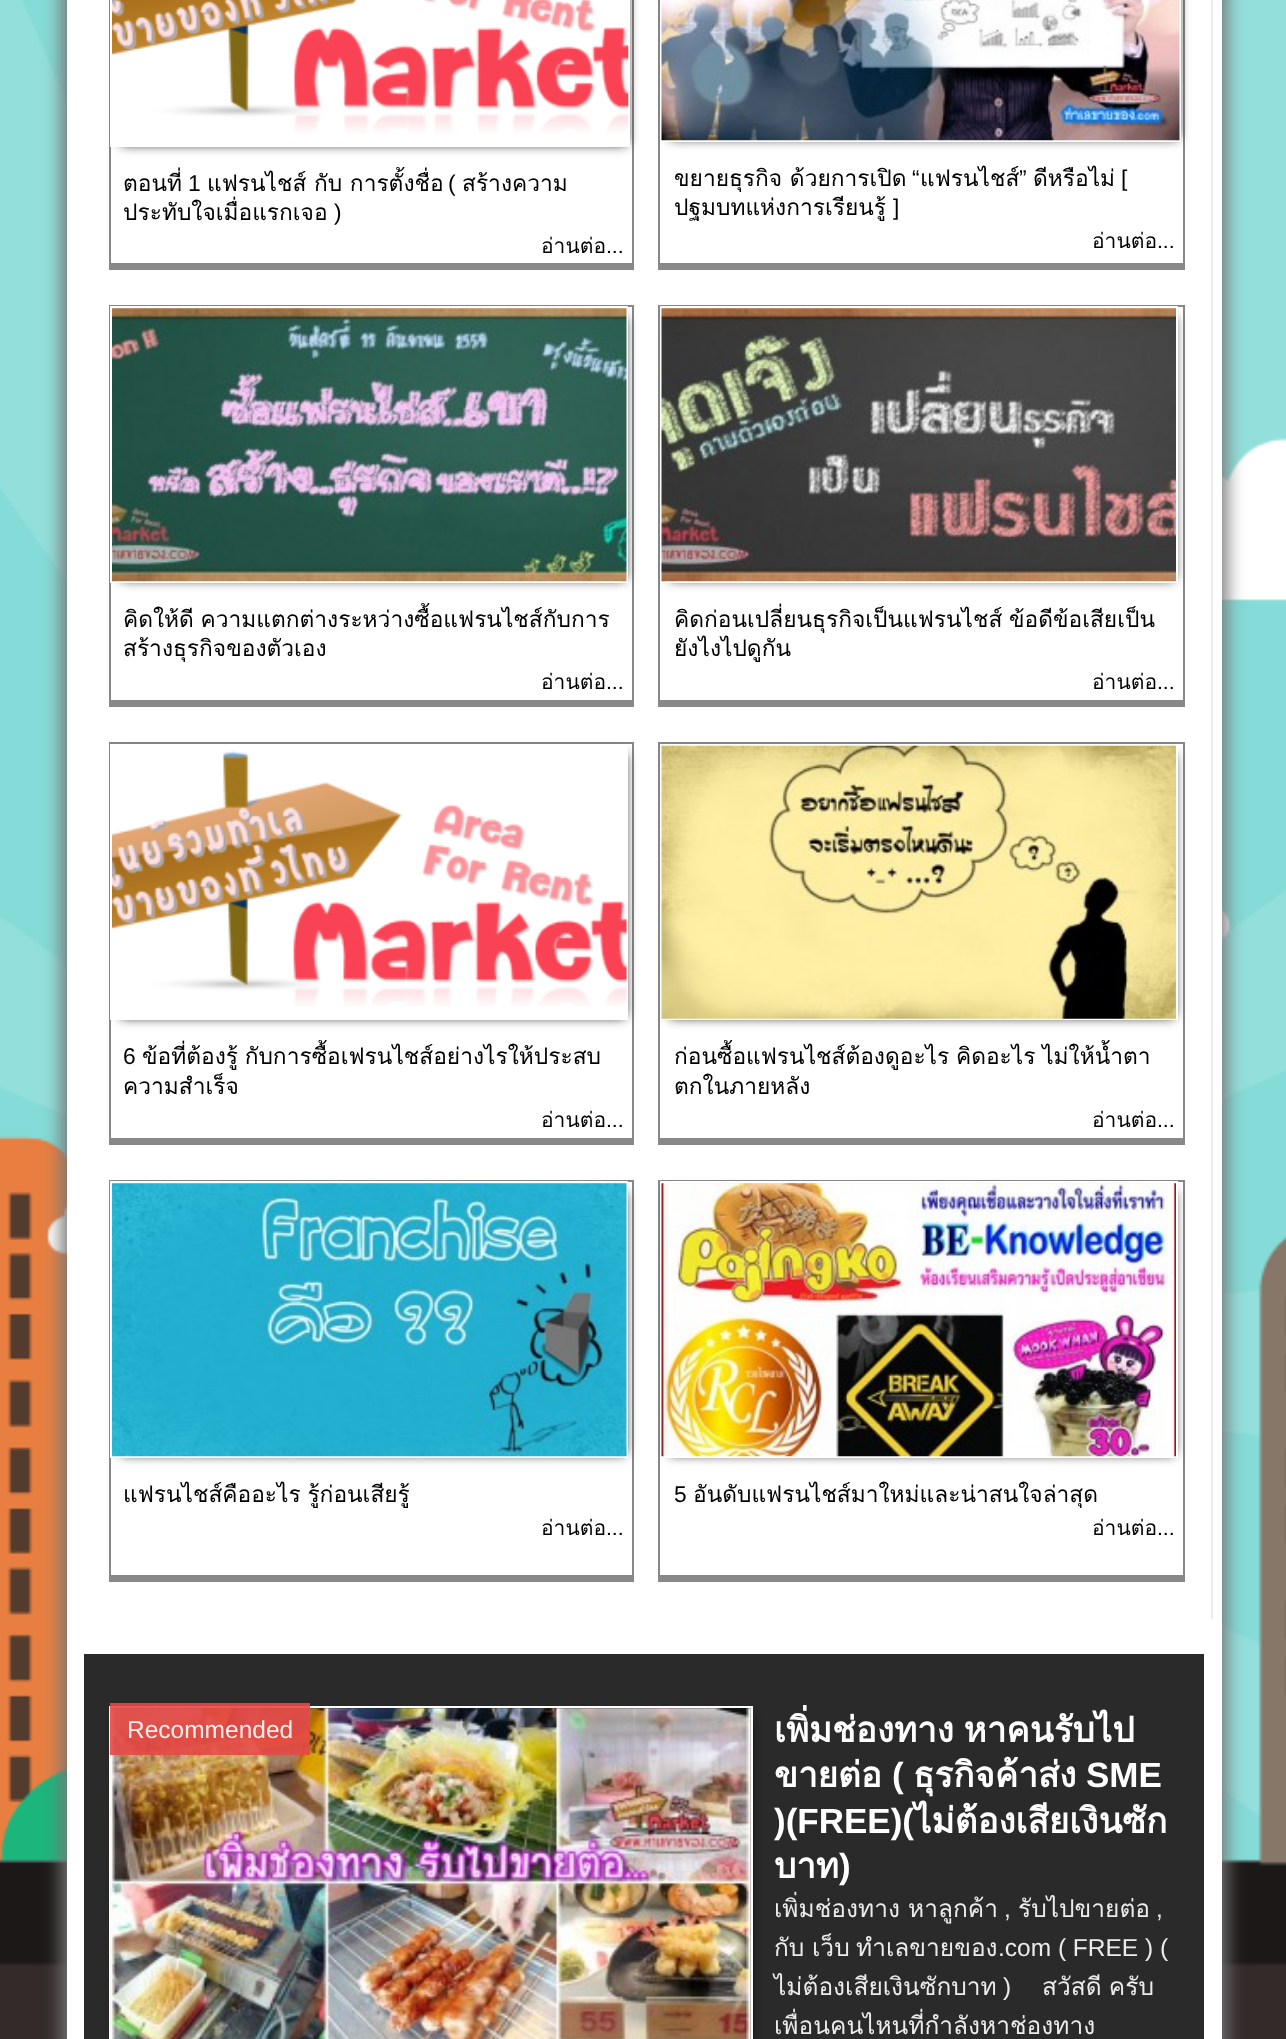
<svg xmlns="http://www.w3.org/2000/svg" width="1286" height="2039">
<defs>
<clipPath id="clip1"><path d="M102 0h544v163h-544zm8-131h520v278h-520z" clip-rule="evenodd"/></clipPath>
<clipPath id="clip2"><path d="M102 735h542v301h-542zm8 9h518v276h-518z" clip-rule="evenodd"/></clipPath>
</defs>
<rect width="100%" height="100%" fill="#fff"/>
<image x="0" y="0" width="1286" height="2039" href="media/1.png"/>
<rect x="61" y="-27" width="1166" height="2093" fill="#777" filter="blur(9px)"/>
<rect x="67" width="1155" height="2039" fill="#fff"/>
<rect x="1211" width="2" height="1619" fill="#ebebeb"/>
<rect x="632" width="2" height="270" fill="#888"/>
<rect x="109" y="263" width="525" height="7" fill="#888"/>
<rect x="109" width="2" height="270" fill="#888"/>
<g clip-path="url(#clip1)">
<rect x="121" y="-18" width="506" height="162" fill="#000" filter="blur(6px)"/>
</g>
<rect x="111" y="-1" width="518" height="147" fill="none" stroke="#fff" stroke-width="2"/>
<image x="112" y="0" width="517" height="133" href="media/2.png"/>
<text x="123" y="191" style="font-family:Loma;font-size:22.75px;fill:#000">ตอนที่</text>
<text x="188" y="191" style="font-family:Liberation Sans;font-size:22.75px;fill:#000">1</text>
<text x="207" y="191" style="font-family:Loma;font-size:22.75px;fill:#000">แฟรนไชส์ กับ การตั้งชื่อ</text>
<text x="448" y="191" style="font-family:Liberation Sans;font-size:22.75px;fill:#000">(</text>
<text x="462" y="191" style="font-family:Loma;font-size:22.75px;fill:#000">สร้างความ</text>
<text x="123" y="220" style="font-family:Loma;font-size:22.75px;fill:#000">ประทับใจเมื่อแรกเจอ</text>
<text x="334" y="220" style="font-family:Liberation Sans;font-size:22.75px;fill:#000">)</text>
<text x="541" y="253" style="font-family:Loma;font-size:21px;fill:#000">อ่านต่อ...</text>
<rect x="1183" width="2" height="270" fill="#888"/>
<rect x="658" y="263" width="527" height="7" fill="#888"/>
<rect x="658" width="2" height="270" fill="#888"/>
<rect x="670" y="-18" width="508" height="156" fill="#000" filter="blur(6px)"/>
<rect x="661" y="-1" width="519" height="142" fill="none" stroke="#fff" stroke-width="2"/>
<image x="661" y="0" width="519" height="141" href="media/3.png"/>
<text x="674" y="186" style="font-family:Loma;font-size:22.75px;fill:#000">ขยายธุรกิจ ด้วยการเปิด</text>
<text x="912" y="186" style="font-family:Liberation Sans;font-size:22.75px;fill:#000">“</text>
<text x="920" y="186" style="font-family:Loma;font-size:22.75px;fill:#000">แฟรนไชส์</text>
<text x="1019" y="186" style="font-family:Liberation Sans;font-size:22.75px;fill:#000">”</text>
<text x="1033" y="186" style="font-family:Loma;font-size:22.75px;fill:#000">ดีหรือไม่</text>
<text x="1121" y="186" style="font-family:Liberation Sans;font-size:22.75px;fill:#000">[</text>
<text x="674" y="215" style="font-family:Loma;font-size:22.75px;fill:#000">ปฐมบทแห่งการเรียนรู้</text>
<text x="893" y="215" style="font-family:Liberation Sans;font-size:22.75px;fill:#000">]</text>
<text x="1092" y="248" style="font-family:Loma;font-size:21px;fill:#000">อ่านต่อ...</text>
<rect x="109" y="305" width="525" height="2" fill="#888"/>
<rect x="632" y="305" width="2" height="402" fill="#888"/>
<rect x="109" y="700" width="525" height="7" fill="#888"/>
<rect x="109" y="305" width="2" height="402" fill="#888"/>
<rect x="121" y="317" width="504" height="262" fill="#000" filter="blur(6px)"/>
<rect x="111" y="307" width="516" height="275" fill="none" stroke="#fff" stroke-width="2"/>
<image x="112" y="308" width="515" height="274" href="media/4.png"/>
<text x="123" y="627" word-spacing="-1" style="font-family:Loma;font-size:22.75px;fill:#000">คิดให้ดี ความแตกต่างระหว่างซื้อแฟรนไชส์กับการ</text>
<text x="123" y="656" style="font-family:Loma;font-size:22.75px;fill:#000">สร้างธุรกิจของตัวเอง</text>
<text x="541" y="689" style="font-family:Loma;font-size:21px;fill:#000">อ่านต่อ...</text>
<rect x="658" y="305" width="527" height="2" fill="#888"/>
<rect x="1183" y="305" width="2" height="402" fill="#888"/>
<rect x="658" y="700" width="527" height="7" fill="#888"/>
<rect x="658" y="305" width="2" height="402" fill="#888"/>
<rect x="670" y="317" width="504" height="262" fill="#000" filter="blur(6px)"/>
<rect x="661" y="307" width="516" height="275" fill="none" stroke="#fff" stroke-width="2"/>
<image x="661" y="308" width="515" height="274" href="media/5.png"/>
<text x="674" y="627" word-spacing="-1" style="font-family:Loma;font-size:22.75px;fill:#000">คิดก่อนเปลี่ยนธุรกิจเป็นแฟรนไชส์ ข้อดีข้อเสียเป็น</text>
<text x="674" y="656" style="font-family:Loma;font-size:22.75px;fill:#000">ยังไงไปดูกัน</text>
<text x="1092" y="689" style="font-family:Loma;font-size:21px;fill:#000">อ่านต่อ...</text>
<rect x="109" y="742" width="525" height="2" fill="#888"/>
<rect x="632" y="742" width="2" height="403" fill="#888"/>
<rect x="109" y="1138" width="525" height="7" fill="#888"/>
<rect x="109" y="742" width="2" height="403" fill="#888"/>
<g clip-path="url(#clip2)">
<rect x="121" y="754" width="504" height="263" fill="#000" filter="blur(6px)"/>
</g>
<rect x="111" y="745" width="516" height="274" fill="none" stroke="#fff" stroke-width="2"/>
<image x="112" y="750" width="515" height="256" href="media/6.png"/>
<text x="123" y="1064" style="font-family:Liberation Sans;font-size:22.75px;fill:#000">6</text>
<text x="142" y="1064" word-spacing="-1" style="font-family:Loma;font-size:22.75px;fill:#000">ข้อที่ต้องรู้ กับการซื้อเฟรนไชส์อย่างไรให้ประสบ</text>
<text x="123" y="1094" style="font-family:Loma;font-size:22.75px;fill:#000">ความสำเร็จ</text>
<text x="541" y="1127" style="font-family:Loma;font-size:21px;fill:#000">อ่านต่อ...</text>
<rect x="658" y="742" width="527" height="2" fill="#888"/>
<rect x="1183" y="742" width="2" height="403" fill="#888"/>
<rect x="658" y="1138" width="527" height="7" fill="#888"/>
<rect x="658" y="742" width="2" height="403" fill="#888"/>
<rect x="670" y="754" width="504" height="263" fill="#000" filter="blur(6px)"/>
<rect x="661" y="745" width="516" height="274" fill="none" stroke="#fff" stroke-width="2"/>
<image x="661" y="745" width="515" height="274" href="media/7.png"/>
<text x="674" y="1064" word-spacing="-1" style="font-family:Loma;font-size:22.75px;fill:#000">ก่อนซื้อแฟรนไชส์ต้องดูอะไร คิดอะไร ไม่ให้น้ำตา</text>
<text x="674" y="1094" style="font-family:Loma;font-size:22.75px;fill:#000">ตกในภายหลัง</text>
<text x="1092" y="1127" style="font-family:Loma;font-size:21px;fill:#000">อ่านต่อ...</text>
<rect x="109" y="1180" width="525" height="2" fill="#888"/>
<rect x="632" y="1180" width="2" height="402" fill="#888"/>
<rect x="109" y="1575" width="525" height="7" fill="#888"/>
<rect x="109" y="1180" width="2" height="402" fill="#888"/>
<rect x="121" y="1192" width="504" height="262" fill="#000" filter="blur(6px)"/>
<rect x="111" y="1182" width="516" height="275" fill="none" stroke="#fff" stroke-width="2"/>
<image x="112" y="1183" width="515" height="274" href="media/8.png"/>
<text x="123" y="1502" word-spacing="-1" style="font-family:Loma;font-size:22.75px;fill:#000">แฟรนไชส์คืออะไร รู้ก่อนเสียรู้</text>
<text x="541" y="1535" style="font-family:Loma;font-size:21px;fill:#000">อ่านต่อ...</text>
<rect x="658" y="1180" width="527" height="2" fill="#888"/>
<rect x="1183" y="1180" width="2" height="402" fill="#888"/>
<rect x="658" y="1575" width="527" height="7" fill="#888"/>
<rect x="658" y="1180" width="2" height="402" fill="#888"/>
<rect x="670" y="1192" width="504" height="262" fill="#000" filter="blur(6px)"/>
<rect x="661" y="1182" width="516" height="275" fill="none" stroke="#fff" stroke-width="2"/>
<image x="661" y="1183" width="515" height="274" href="media/9.png"/>
<text x="674" y="1502" style="font-family:Liberation Sans;font-size:22.75px;fill:#000">5</text>
<text x="693" y="1502" style="font-family:Loma;font-size:22.75px;fill:#000">อันดับแฟรนไชส์มาใหม่และน่าสนใจล่าสุด</text>
<text x="1092" y="1535" style="font-family:Loma;font-size:21px;fill:#000">อ่านต่อ...</text>
<rect x="84" y="1654" width="1120" height="385" fill="#2a2a2a"/>
<rect x="119" y="1717" width="630" height="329" fill="#000" filter="blur(6px)"/>
<rect x="110" y="1707" width="642" height="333" fill="none" stroke="#fff" stroke-width="2"/>
<image x="110" y="1708" width="641" height="331" href="media/10.png"/>
<text x="774" y="1742" word-spacing="-2" style="font-family:Loma;font-size:35px;font-weight:bold;fill:#fff">เพิ่มช่องทาง หาคนรับไป</text>
<text x="774" y="1787" style="font-family:Loma;font-size:35px;font-weight:bold;fill:#fff">ขายต่อ</text>
<text x="892" y="1787" style="font-family:Liberation Sans;font-size:35px;font-weight:bold;fill:#fff">(</text>
<text x="913" y="1787" style="font-family:Loma;font-size:35px;font-weight:bold;fill:#fff">ธุรกิจค้าส่ง</text>
<text x="1086" y="1787" style="font-family:Liberation Sans;font-size:35px;font-weight:bold;fill:#fff">SME</text>
<text x="774" y="1833" style="font-family:Liberation Sans;font-size:35px;font-weight:bold;fill:#fff">)(FREE)(</text>
<text x="914" y="1833" style="font-family:Loma;font-size:35px;font-weight:bold;fill:#fff">ไม่ต้องเสียเงินซัก</text>
<text x="774" y="1878" style="font-family:Loma;font-size:35px;font-weight:bold;fill:#fff">บาท</text>
<text x="839" y="1878" style="font-family:Liberation Sans;font-size:35px;font-weight:bold;fill:#fff">)</text>
<rect x="110" y="1703" width="200" height="52" fill="#e64946e6"/>
<text x="127" y="1738" style="font-family:Liberation Sans;font-size:24.5px;fill:#fceded">Recommended</text>
<text x="774" y="1917" style="font-family:Loma;font-size:24.5px;fill:#ebebeb">เพิ่มช่องทาง หาลูกค้า</text>
<text x="1004" y="1917" style="font-family:Liberation Sans;font-size:24.5px;fill:#ebebeb">,</text>
<text x="1018" y="1917" style="font-family:Loma;font-size:24.5px;fill:#ebebeb">รับไปขายต่อ</text>
<text x="1156" y="1917" style="font-family:Liberation Sans;font-size:24.5px;fill:#ebebeb">,</text>
<text x="774" y="1956" style="font-family:Loma;font-size:24.5px;fill:#ebebeb">กับ</text>
<text x="812" y="1956" style="font-family:Loma;font-size:24.5px;fill:#ebebeb">เว็บ</text>
<text x="856" y="1956" style="font-family:Loma;font-size:24.5px;fill:#ebebeb">ทำเลขายของ</text>
<text x="998" y="1956" style="font-family:Liberation Sans;font-size:24.5px;fill:#ebebeb">.com ( FREE ) (</text>
<text x="774" y="1995" style="font-family:Loma;font-size:24.5px;fill:#ebebeb">ไม่ต้องเสียเงินซักบาท</text>
<text x="1003" y="1995" style="font-family:Liberation Sans;font-size:24.5px;fill:#ebebeb">)</text>
<text x="1042" y="1995" word-spacing="-1" style="font-family:Loma;font-size:24.5px;fill:#ebebeb">สวัสดี ครับ</text>
<text x="774" y="2034" style="font-family:Loma;font-size:24.5px;fill:#ebebeb">เพื่อนคนไหนที่กำลังหาช่องทาง</text>
</svg>
